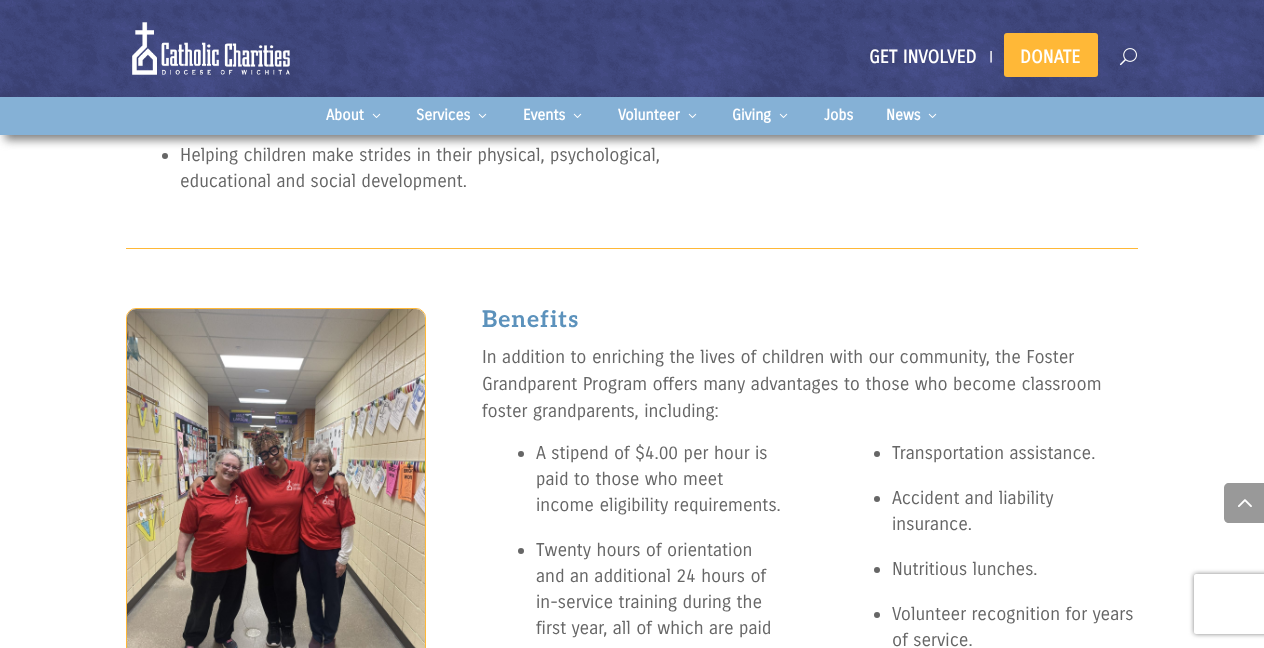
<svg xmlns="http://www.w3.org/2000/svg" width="1264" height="648">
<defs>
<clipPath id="clip1"><path d="M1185 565h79v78h-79zm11 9h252c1 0 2 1 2 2v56c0 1-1 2-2 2h-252c-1 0-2-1-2-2v-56c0-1 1-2 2-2z" clip-rule="evenodd"/></clipPath>
</defs>
<rect width="100%" height="100%" fill="#fff"/>
<image x="0" y="0" width="1264" height="97" href="media/1.png"/>
<image x="132" y="22" width="158" height="53" href="media/2.png"/>
<text x="869" y="63" style="font-family:Carrois Gothic;font-size:18px;font-weight:bold;fill:#fff">GET INVOLVED</text>
<rect x="1004" y="33" width="94" height="44" rx="3" fill="#ffb837"/>
<text x="989" y="61" style="font-family:Carrois Gothic;font-size:12px;font-weight:bold;fill:#fff">|</text>
<text x="1020" y="63" style="font-family:Carrois Gothic;font-size:18px;font-weight:bold;fill:#fff">DONATE</text>
<image x="1120" y="48" width="17" height="18" href="media/3.png"/>
<circle cx="165" cy="156" r="3" fill="#666"/>
<rect x="5" y="112" width="1254" height="28" fill="#808080" filter="blur(5px)"/>
<rect y="97" width="1264" height="38" fill="#85b1d6"/>
<text x="326" y="120" style="font-family:Carrois Gothic;font-size:15px;font-weight:bold;fill:#fff">About</text>
<image x="372" y="113" width="9" height="5" href="media/4.png"/>
<text x="416" y="120" style="font-family:Carrois Gothic;font-size:15px;font-weight:bold;fill:#fff">Services</text>
<image x="478" y="113" width="9" height="5" href="media/4.png"/>
<text x="523" y="120" style="font-family:Carrois Gothic;font-size:15px;font-weight:bold;fill:#fff">Events</text>
<image x="573" y="113" width="9" height="5" href="media/4.png"/>
<text x="618" y="120" style="font-family:Carrois Gothic;font-size:15px;font-weight:bold;fill:#fff">Volunteer</text>
<image x="688" y="113" width="9" height="5" href="media/4.png"/>
<text x="732" y="120" style="font-family:Carrois Gothic;font-size:15px;font-weight:bold;fill:#fff">Giving</text>
<image x="779" y="113" width="9" height="5" href="media/4.png"/>
<text x="824" y="120" style="font-family:Carrois Gothic;font-size:15px;font-weight:bold;fill:#fff">Jobs</text>
<text x="886" y="120" style="font-family:Carrois Gothic;font-size:15px;font-weight:bold;fill:#fff">News</text>
<image x="928" y="113" width="9" height="5" href="media/4.png"/>
<text x="180" y="161" style="font-family:Carrois Gothic;font-size:18px;fill:#666">Helping children make strides in their physical, psychological,</text>
<text x="180" y="187" style="font-family:Carrois Gothic;font-size:18px;fill:#666">educational and social development.</text>
<rect x="126" y="248" width="1012" height="1" fill="#ffb837"/>
<rect x="126.5" y="308.5" width="299" height="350" rx="9.5" fill="none" stroke="#ffb837"/>
<image x="127" y="309" width="298" height="339" href="media/5.png"/>
<text x="482" y="327" style="font-family:Aleo;font-size:23px;font-weight:bold;letter-spacing:1px;fill:#5c92bc">Benefits</text>
<text x="482" y="363" style="font-family:Carrois Gothic;font-size:18px;fill:#666">In addition to enriching the lives of children with our community, the Foster</text>
<text x="482" y="390" style="font-family:Carrois Gothic;font-size:18px;fill:#666">Grandparent Program offers many advantages to those who become classroom</text>
<text x="482" y="417" style="font-family:Carrois Gothic;font-size:18px;fill:#666">foster grandparents, including:</text>
<circle cx="521" cy="454" r="3" fill="#666"/>
<text x="536" y="459" style="font-family:Carrois Gothic;font-size:18px;fill:#666">A stipend of $4.00 per hour is</text>
<text x="536" y="485" style="font-family:Carrois Gothic;font-size:18px;fill:#666">paid to those who meet</text>
<text x="536" y="511" style="font-family:Carrois Gothic;font-size:18px;fill:#666">income eligibility requirements.</text>
<circle cx="521" cy="551" r="3" fill="#666"/>
<text x="536" y="556" style="font-family:Carrois Gothic;font-size:18px;fill:#666">Twenty hours of orientation</text>
<text x="536" y="582" style="font-family:Carrois Gothic;font-size:18px;fill:#666">and an additional 24 hours of</text>
<text x="536" y="608" style="font-family:Carrois Gothic;font-size:18px;fill:#666">in-service training during the</text>
<text x="536" y="634" style="font-family:Carrois Gothic;font-size:18px;fill:#666">first year, all of which are paid</text>
<circle cx="877" cy="454" r="3" fill="#666"/>
<text x="892" y="459" style="font-family:Carrois Gothic;font-size:18px;fill:#666">Transportation assistance.</text>
<circle cx="877" cy="499" r="3" fill="#666"/>
<text x="892" y="504" style="font-family:Carrois Gothic;font-size:18px;fill:#666">Accident and liability</text>
<text x="892" y="530" style="font-family:Carrois Gothic;font-size:18px;fill:#666">insurance.</text>
<circle cx="877" cy="570" r="3" fill="#666"/>
<text x="892" y="575" style="font-family:Carrois Gothic;font-size:18px;fill:#666">Nutritious lunches.</text>
<circle cx="877" cy="615" r="3" fill="#666"/>
<text x="892" y="620" style="font-family:Carrois Gothic;font-size:18px;fill:#666">Volunteer recognition for years</text>
<text x="892" y="646" style="font-family:Carrois Gothic;font-size:18px;fill:#666">of service.</text>
<g clip-path="url(#clip1)">
<rect x="1194" y="574" width="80" height="60" rx="2" fill="#808080" filter="blur(2.5px)"/>
</g>
<path d="M1229 483h35v40h-35c-3 0-5-2-5-5v-30c0-3 2-5 5-5z" fill="#999"/>
<image x="1238" y="499" width="14" height="8" href="media/6.png"/>
</svg>
